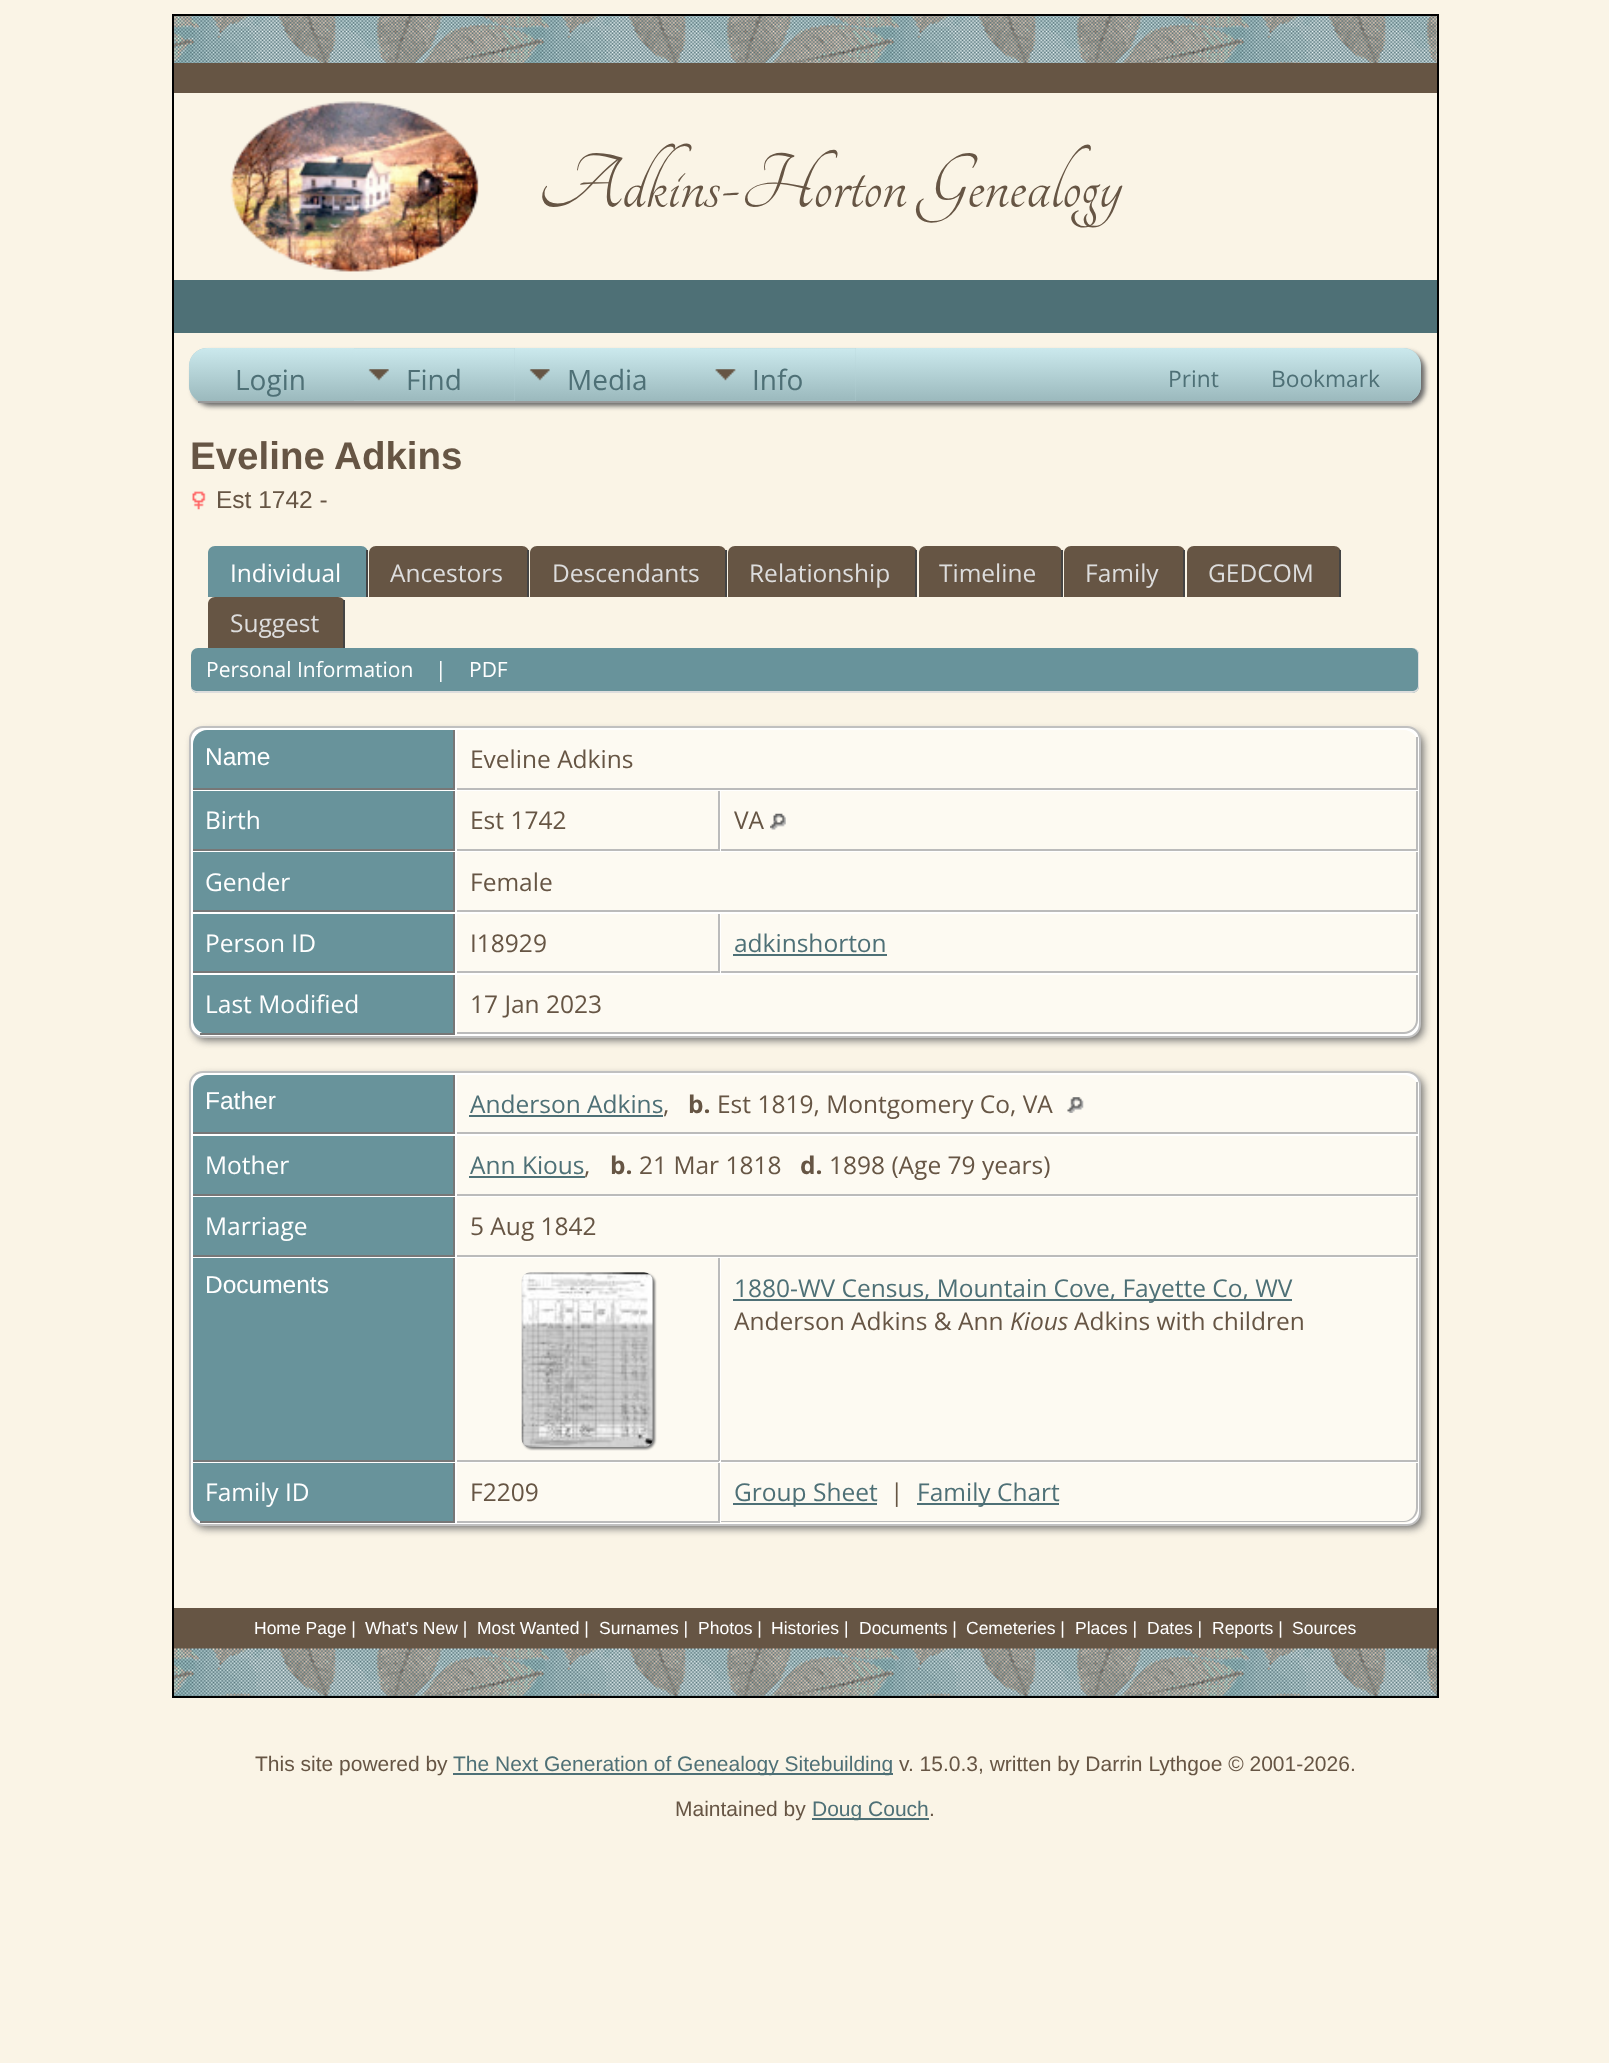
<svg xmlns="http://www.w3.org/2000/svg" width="1609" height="2063">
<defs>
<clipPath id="clip1"><rect x="189" y="348" width="1232" height="55" rx="18"/></clipPath>
<linearGradient id="g1" gradientUnits="userSpaceOnUse" x1="805" y1="348" x2="805" y2="401"><stop offset="0" stop-color="#cbe9ed"/><stop offset="1" stop-color="#9bb9bd"/></linearGradient>
</defs>
<rect width="100%" height="100%" fill="#faf4e6"/>
<rect x="172" y="14" width="1267" height="2" fill="#000"/>
<rect x="194" y="732" width="1229" height="308" rx="12" fill="#666" filter="blur(4.5px)"/>
<rect x="194" y="1076" width="1229" height="452" rx="12" fill="#666" filter="blur(4.5px)"/>
<rect x="1437" y="14" width="2" height="1684" fill="#000"/>
<rect x="172" y="1696" width="1267" height="2" fill="#000"/>
<rect x="172" y="14" width="2" height="1684" fill="#000"/>
<image x="174" y="16" width="1263" height="47" href="media/1.png"/>
<rect x="174" y="63" width="1263" height="30" fill="#654"/>
<image x="230" y="101" width="249" height="171" href="media/2.png"/>
<text x="538" y="207" style="font-family:Tangerine;font-size:84px;fill:#654">Adkins-Horton Genealogy</text>
<rect x="174" y="280" width="1263" height="53" fill="#4e7076"/>
<rect x="193" y="352" width="1232" height="54" rx="18" fill="#666" filter="blur(2.5px)"/>
<rect x="189" y="348" width="1232" height="55" rx="18" fill="#b4d1d6"/>
<g clip-path="url(#clip1)">
<path d="M207 348h1196c10 0 18 8 18 18v35h-1232v-35c0-10 8-18 18-18z" fill="url(#g1)"/>
</g>
<rect x="198" y="401" width="1214" height="2" fill="#999"/>
<text x="235" y="390" style="font-family:Open Sans;font-size:28px;fill:#4e7076">Login</text>
<rect x="354" y="348" width="161" height="53" fill="#b4d1d6"/>
<image x="354" y="348" width="161" height="53" href="media/3.png"/>
<text x="406" y="390" style="font-family:Open Sans;font-size:28px;fill:#4e7076">Find</text>
<image x="514" y="348" width="186" height="53" href="media/4.png"/>
<text x="567" y="390" style="font-family:Open Sans;font-size:28px;fill:#4e7076">Media</text>
<rect x="700" y="348" width="156" height="53" fill="#b4d1d6"/>
<image x="700" y="348" width="156" height="53" href="media/5.png"/>
<text x="752" y="390" style="font-family:Open Sans;font-size:28px;fill:#4e7076">Info</text>
<text x="1168" y="387" style="font-family:Open Sans;font-size:22.75px;fill:#4e7076">Print</text>
<text x="1271" y="387" style="font-family:Open Sans;font-size:22.75px;fill:#4e7076">Bookmark</text>
<text x="190" y="469" style="font-family:Liberation Sans;font-size:38.5px;font-weight:bold;fill:#654">Eveline Adkins</text>
<image x="192" y="491" width="14" height="19" href="media/6.png"/>
<text x="216" y="508" style="font-family:Liberation Sans;font-size:24.5px;fill:#654">Est 1742 -</text>
<path d="M215 546h146c4 0 7 3 7 7v44h-160v-44c0-4 3-7 7-7z" fill="#68939b"/>
<rect x="366" y="550" width="2" height="47" fill="#444"/>
<text x="230" y="582" style="font-family:Open Sans;font-size:24.5px;fill:#fff">Individual</text>
<path d="M376 546h146c4 0 7 3 7 7v44h-160v-44c0-4 3-7 7-7z" fill="#654"/>
<rect x="527" y="550" width="2" height="47" fill="#444"/>
<text x="390" y="582" style="font-family:Open Sans;font-size:24.5px;fill:#ddd">Ancestors</text>
<path d="M537 546h182c4 0 7 3 7 7v44h-196v-44c0-4 3-7 7-7z" fill="#654"/>
<rect x="725" y="550" width="2" height="47" fill="#444"/>
<text x="552" y="582" style="font-family:Open Sans;font-size:24.5px;fill:#ddd">Descendants</text>
<path d="M735 546h175c4 0 7 3 7 7v44h-189v-44c0-4 3-7 7-7z" fill="#654"/>
<rect x="915" y="550" width="2" height="47" fill="#444"/>
<text x="749" y="582" style="font-family:Open Sans;font-size:24.5px;fill:#ddd">Relationship</text>
<path d="M926 546h129c4 0 7 3 7 7v44h-143v-44c0-4 3-7 7-7z" fill="#654"/>
<rect x="1061" y="550" width="2" height="47" fill="#444"/>
<text x="939" y="582" style="font-family:Open Sans;font-size:24.5px;fill:#ddd">Timeline</text>
<path d="M1071 546h107c4 0 7 3 7 7v44h-121v-44c0-4 3-7 7-7z" fill="#654"/>
<rect x="1183" y="550" width="2" height="47" fill="#444"/>
<text x="1085" y="582" style="font-family:Open Sans;font-size:24.5px;fill:#ddd">Family</text>
<path d="M1194 546h140c4 0 7 3 7 7v44h-154v-44c0-4 3-7 7-7z" fill="#654"/>
<rect x="1339" y="550" width="2" height="47" fill="#444"/>
<text x="1208" y="582" style="font-family:Open Sans;font-size:24.5px;fill:#ddd">GEDCOM</text>
<path d="M215 597h123c4 0 7 3 7 7v44h-137v-44c0-4 3-7 7-7z" fill="#654"/>
<rect x="343" y="600" width="2" height="48" fill="#444"/>
<text x="230" y="632" style="font-family:Open Sans;font-size:24.5px;fill:#ddd">Suggest</text>
<rect x="191" y="648" width="1228" height="45" rx="7" fill="#68939b"/>
<path d="M198 648h1214c4 0 7 3 7 6v32c0 4-3 7-7 7h-1214c-4 0-7-3-7-7v-32c0-3 3-6 7-6zm0 0h1214c3 0 6 3 6 6v32c0 3-3 5-6 5h-1214c-4 0-7-2-7-5v-32c0-3 3-6 7-6z" fill="#ddd" fill-rule="evenodd"/>
<text x="206" y="677" style="font-family:Open Sans;font-size:21px;fill:#fff">Personal Information</text>
<text x="435" y="677" style="font-family:Open Sans;font-size:21px;fill:#fff">|</text>
<text x="469" y="677" style="font-family:Open Sans;font-size:21px;fill:#fff">PDF</text>
<rect x="190" y="727" width="1230" height="310" rx="13" fill="#fff" stroke="#c0c0c0" stroke-width="2"/>
<path d="M207 730h248v59h-262v-45c0-7.5 6.5-14 14-14z" fill="#68939b"/>
<rect x="453" y="730" width="2" height="59" fill="#777"/>
<rect x="193" y="788" width="262" height="2" fill="#777"/>
<text x="205" y="765" style="font-family:Liberation Sans;font-size:24.5px;fill:#fff">Name</text>
<path d="M457 730h947c7.5 0 14 6.5 14 14v45h-961z" fill="#fdfaf2"/>
<rect x="1416" y="737" width="2" height="52" fill="#bbb"/>
<rect x="457" y="788" width="961" height="2" fill="#bbb"/>
<text x="470" y="768" style="font-family:Open Sans;font-size:24.5px;fill:#654">Eveline Adkins</text>
<rect x="193" y="791" width="260" height="58" fill="#68939b"/>
<rect x="453" y="791" width="2" height="60" fill="#777"/>
<rect x="193" y="849" width="262" height="2" fill="#777"/>
<text x="205" y="829" style="font-family:Open Sans;font-size:24.5px;fill:#fff">Birth</text>
<rect x="457" y="791" width="261" height="58" fill="#fdfaf2"/>
<rect x="718" y="791" width="2" height="60" fill="#bbb"/>
<rect x="457" y="849" width="262" height="2" fill="#bbb"/>
<text x="470" y="829" style="font-family:Open Sans;font-size:24.5px;fill:#654">Est 1742</text>
<rect x="721" y="791" width="695" height="58" fill="#fdfaf2"/>
<rect x="1416" y="791" width="2" height="60" fill="#bbb"/>
<rect x="721" y="849" width="697" height="2" fill="#bbb"/>
<text x="734" y="829" style="font-family:Open Sans;font-size:24.5px;fill:#654">VA</text>
<image x="770" y="813" width="16" height="17" href="media/7.png"/>
<rect x="193" y="852" width="260" height="58" fill="#68939b"/>
<rect x="453" y="852" width="2" height="60" fill="#777"/>
<rect x="193" y="910" width="262" height="2" fill="#777"/>
<text x="205" y="891" style="font-family:Open Sans;font-size:24.5px;fill:#fff">Gender</text>
<rect x="457" y="852" width="959" height="58" fill="#fdfaf2"/>
<rect x="1416" y="852" width="2" height="60" fill="#bbb"/>
<rect x="457" y="910" width="961" height="2" fill="#bbb"/>
<text x="470" y="891" style="font-family:Open Sans;font-size:24.5px;fill:#654">Female</text>
<rect x="193" y="914" width="260" height="57" fill="#68939b"/>
<rect x="453" y="914" width="2" height="59" fill="#777"/>
<rect x="193" y="971" width="262" height="2" fill="#777"/>
<text x="205" y="952" style="font-family:Open Sans;font-size:24.5px;fill:#fff">Person ID</text>
<rect x="457" y="914" width="261" height="57" fill="#fdfaf2"/>
<rect x="718" y="914" width="2" height="59" fill="#bbb"/>
<rect x="457" y="971" width="262" height="2" fill="#bbb"/>
<text x="470" y="952" style="font-family:Open Sans;font-size:24.5px;fill:#654">I18929</text>
<rect x="721" y="914" width="695" height="57" fill="#fdfaf2"/>
<rect x="1416" y="914" width="2" height="59" fill="#bbb"/>
<rect x="721" y="971" width="697" height="2" fill="#bbb"/>
<text x="734" y="952" style="font-family:Open Sans;font-size:24.5px;fill:#4e7076">adkinshorton</text>
<rect x="733" y="954" width="154" height="2" fill="#4e7076"/>
<path d="M193 975h262v59h-248c-7.5 0-14-6.5-14-14z" fill="#68939b"/>
<rect x="453" y="975" width="2" height="59" fill="#777"/>
<rect x="200" y="1033" width="255" height="2" fill="#777"/>
<text x="205" y="1013" style="font-family:Open Sans;font-size:24.5px;fill:#fff">Last Modified</text>
<path d="M457 975h961v45c0 7.5-6.5 14-14 14h-947z" fill="#fdfaf2"/>
<path d="M457 975h961v45c0 8-7 14-14 14h-947zm0 0h959v45c0 7-6 12-12 12h-947z" fill="#bbb" fill-rule="evenodd"/>
<text x="470" y="1013" style="font-family:Open Sans;font-size:24.5px;fill:#654">17 Jan 2023</text>
<rect x="190" y="1072" width="1230" height="453" rx="13" fill="#fff" stroke="#c0c0c0" stroke-width="2"/>
<path d="M207 1075h248v59h-262v-45c0-7.5 6.5-14 14-14z" fill="#68939b"/>
<rect x="453" y="1075" width="2" height="59" fill="#777"/>
<rect x="193" y="1132" width="262" height="2" fill="#777"/>
<text x="205" y="1109" style="font-family:Liberation Sans;font-size:24.5px;fill:#fff">Father</text>
<path d="M457 1075h947c7.5 0 14 6.5 14 14v45h-961z" fill="#fdfaf2"/>
<rect x="1416" y="1082" width="2" height="52" fill="#bbb"/>
<rect x="457" y="1132" width="961" height="2" fill="#bbb"/>
<text x="470" y="1113" style="font-family:Open Sans;font-size:24.5px;fill:#4e7076">Anderson Adkins</text>
<rect x="469" y="1115" width="194" height="2" fill="#4e7076"/>
<text x="663" y="1113" style="font-family:Open Sans;font-size:24.5px;fill:#654">,</text>
<text x="688" y="1113" style="font-family:Open Sans;font-size:24.5px;font-weight:bold;fill:#654">b.</text>
<text x="717" y="1113" style="font-family:Open Sans;font-size:24.5px;fill:#654">Est 1819, Montgomery Co, VA</text>
<image x="1067" y="1097" width="17" height="16" href="media/8.png"/>
<rect x="193" y="1136" width="260" height="58" fill="#68939b"/>
<rect x="453" y="1136" width="2" height="59" fill="#777"/>
<rect x="193" y="1194" width="262" height="2" fill="#777"/>
<text x="205" y="1174" style="font-family:Open Sans;font-size:24.5px;fill:#fff">Mother</text>
<rect x="457" y="1136" width="959" height="58" fill="#fdfaf2"/>
<rect x="1416" y="1136" width="2" height="59" fill="#bbb"/>
<rect x="457" y="1194" width="961" height="2" fill="#bbb"/>
<text x="470" y="1174" style="font-family:Open Sans;font-size:24.5px;fill:#4e7076">Ann Kious</text>
<rect x="469" y="1176" width="116" height="2" fill="#4e7076"/>
<text x="584" y="1174" style="font-family:Open Sans;font-size:24.5px;fill:#654">,</text>
<text x="610" y="1174" style="font-family:Open Sans;font-size:24.5px;font-weight:bold;fill:#654">b.</text>
<text x="639" y="1174" style="font-family:Open Sans;font-size:24.5px;fill:#654">21 Mar 1818</text>
<text x="800" y="1174" style="font-family:Open Sans;font-size:24.5px;font-weight:bold;fill:#654">d.</text>
<text x="829" y="1174" style="font-family:Open Sans;font-size:24.5px;fill:#654">1898 (Age 79 years)</text>
<rect x="193" y="1197" width="260" height="58" fill="#68939b"/>
<rect x="453" y="1197" width="2" height="60" fill="#777"/>
<rect x="193" y="1255" width="262" height="2" fill="#777"/>
<text x="205" y="1235" style="font-family:Open Sans;font-size:24.5px;fill:#fff">Marriage</text>
<rect x="457" y="1197" width="959" height="58" fill="#fdfaf2"/>
<rect x="1416" y="1197" width="2" height="60" fill="#bbb"/>
<rect x="457" y="1255" width="961" height="2" fill="#bbb"/>
<text x="470" y="1235" style="font-family:Open Sans;font-size:24.5px;fill:#654">5 Aug 1842</text>
<rect x="193" y="1258" width="260" height="202" fill="#68939b"/>
<rect x="453" y="1258" width="2" height="203" fill="#777"/>
<rect x="193" y="1460" width="262" height="2" fill="#777"/>
<text x="205" y="1293" style="font-family:Liberation Sans;font-size:24.5px;fill:#fff">Documents</text>
<rect x="457" y="1258" width="261" height="202" fill="#fdfaf2"/>
<rect x="718" y="1258" width="2" height="203" fill="#bbb"/>
<rect x="457" y="1460" width="262" height="2" fill="#bbb"/>
<rect x="523" y="1274" width="132" height="175" rx="9" fill="#777" filter="blur(1px)"/>
<image x="521" y="1272" width="132" height="176" href="media/9.png"/>
<rect x="721" y="1258" width="695" height="202" fill="#fdfaf2"/>
<rect x="1416" y="1258" width="2" height="203" fill="#bbb"/>
<rect x="721" y="1460" width="697" height="2" fill="#bbb"/>
<rect x="733" y="1299" width="559" height="2" fill="#4e7076"/>
<text x="734" y="1297" style="font-family:Open Sans;font-size:24.5px;fill:#4e7076">1880-WV Census, Mountain Cove, Fayette Co, WV</text>
<text x="734" y="1330" style="font-family:Open Sans;font-size:24.5px;fill:#654">Anderson Adkins &amp; Ann</text>
<text x="1010" y="1330" style="font-family:Open Sans;font-size:24.5px;font-style:italic;fill:#654">Kious</text>
<text x="1074" y="1330" style="font-family:Open Sans;font-size:24.5px;fill:#654">Adkins with children</text>
<path d="M193 1463h262v60h-248c-7.5 0-14-6.5-14-14z" fill="#68939b"/>
<rect x="453" y="1463" width="2" height="60" fill="#777"/>
<rect x="200" y="1521" width="255" height="2" fill="#777"/>
<text x="205" y="1501" style="font-family:Open Sans;font-size:24.5px;fill:#fff">Family ID</text>
<rect x="457" y="1463" width="261" height="58" fill="#fdfaf2"/>
<rect x="718" y="1463" width="2" height="60" fill="#bbb"/>
<rect x="457" y="1521" width="262" height="2" fill="#bbb"/>
<text x="470" y="1501" style="font-family:Open Sans;font-size:24.5px;fill:#654">F2209</text>
<path d="M721 1463h697v46c0 7.5-6.5 14-14 14h-683z" fill="#fdfaf2"/>
<path d="M721 1463h697v45c0 8-7 14-14 14h-683zm0 0h695v45c0 7-6 13-12 13h-683z" fill="#bbb" fill-rule="evenodd"/>
<rect x="733" y="1503" width="144" height="2" fill="#4e7076"/>
<text x="734" y="1501" style="font-family:Open Sans;font-size:24.5px;fill:#4e7076">Group Sheet</text>
<text x="890" y="1501" style="font-family:Open Sans;font-size:24.5px;fill:#654">|</text>
<rect x="917" y="1503" width="142" height="2" fill="#4e7076"/>
<text x="917" y="1501" style="font-family:Open Sans;font-size:24.5px;fill:#4e7076">Family Chart</text>
<rect x="174" y="1608" width="1263" height="41" fill="#654"/>
<text x="254" y="1634" style="font-family:Liberation Sans;font-size:17.5px;fill:#fff">Home Page |</text>
<text x="365" y="1634" style="font-family:Liberation Sans;font-size:17.5px;fill:#fff">What's New |</text>
<text x="477" y="1634" style="font-family:Liberation Sans;font-size:17.5px;fill:#fff">Most Wanted |</text>
<text x="599" y="1634" style="font-family:Liberation Sans;font-size:17.5px;fill:#fff">Surnames |</text>
<text x="698" y="1634" style="font-family:Liberation Sans;font-size:17.5px;fill:#fff">Photos |</text>
<text x="771" y="1634" style="font-family:Liberation Sans;font-size:17.5px;fill:#fff">Histories |</text>
<text x="859" y="1634" style="font-family:Liberation Sans;font-size:17.5px;fill:#fff">Documents |</text>
<text x="966" y="1634" style="font-family:Liberation Sans;font-size:17.5px;fill:#fff">Cemeteries |</text>
<text x="1075" y="1634" style="font-family:Liberation Sans;font-size:17.5px;fill:#fff">Places |</text>
<text x="1147" y="1634" style="font-family:Liberation Sans;font-size:17.5px;fill:#fff">Dates |</text>
<text x="1212" y="1634" style="font-family:Liberation Sans;font-size:17.5px;fill:#fff">Reports |</text>
<text x="1292" y="1634" style="font-family:Liberation Sans;font-size:17.5px;fill:#fff">Sources</text>
<rect x="174" y="1649" width="1263" height="47" fill="#4e7076"/>
<image x="174" y="1648" width="1263" height="48" href="media/10.png"/>
<text x="255" y="1771" style="font-family:Liberation Sans;font-size:21px;fill:#654">This site powered by</text>
<rect x="453" y="1773" width="440" height="2" fill="#4e7076"/>
<text x="453" y="1771" style="font-family:Liberation Sans;font-size:21px;fill:#4e7076">The Next Generation of Genealogy Sitebuilding</text>
<text x="899" y="1771" style="font-family:Liberation Sans;font-size:21px;fill:#654">v. 15.0.3, written by Darrin Lythgoe © 2001-2026.</text>
<text x="675" y="1816" style="font-family:Liberation Sans;font-size:21px;fill:#654">Maintained by</text>
<rect x="812" y="1818" width="117" height="2" fill="#4e7076"/>
<text x="812" y="1816" style="font-family:Liberation Sans;font-size:21px;fill:#4e7076">Doug Couch</text>
<text x="929" y="1816" style="font-family:Liberation Sans;font-size:21px;fill:#654">.</text>
</svg>
